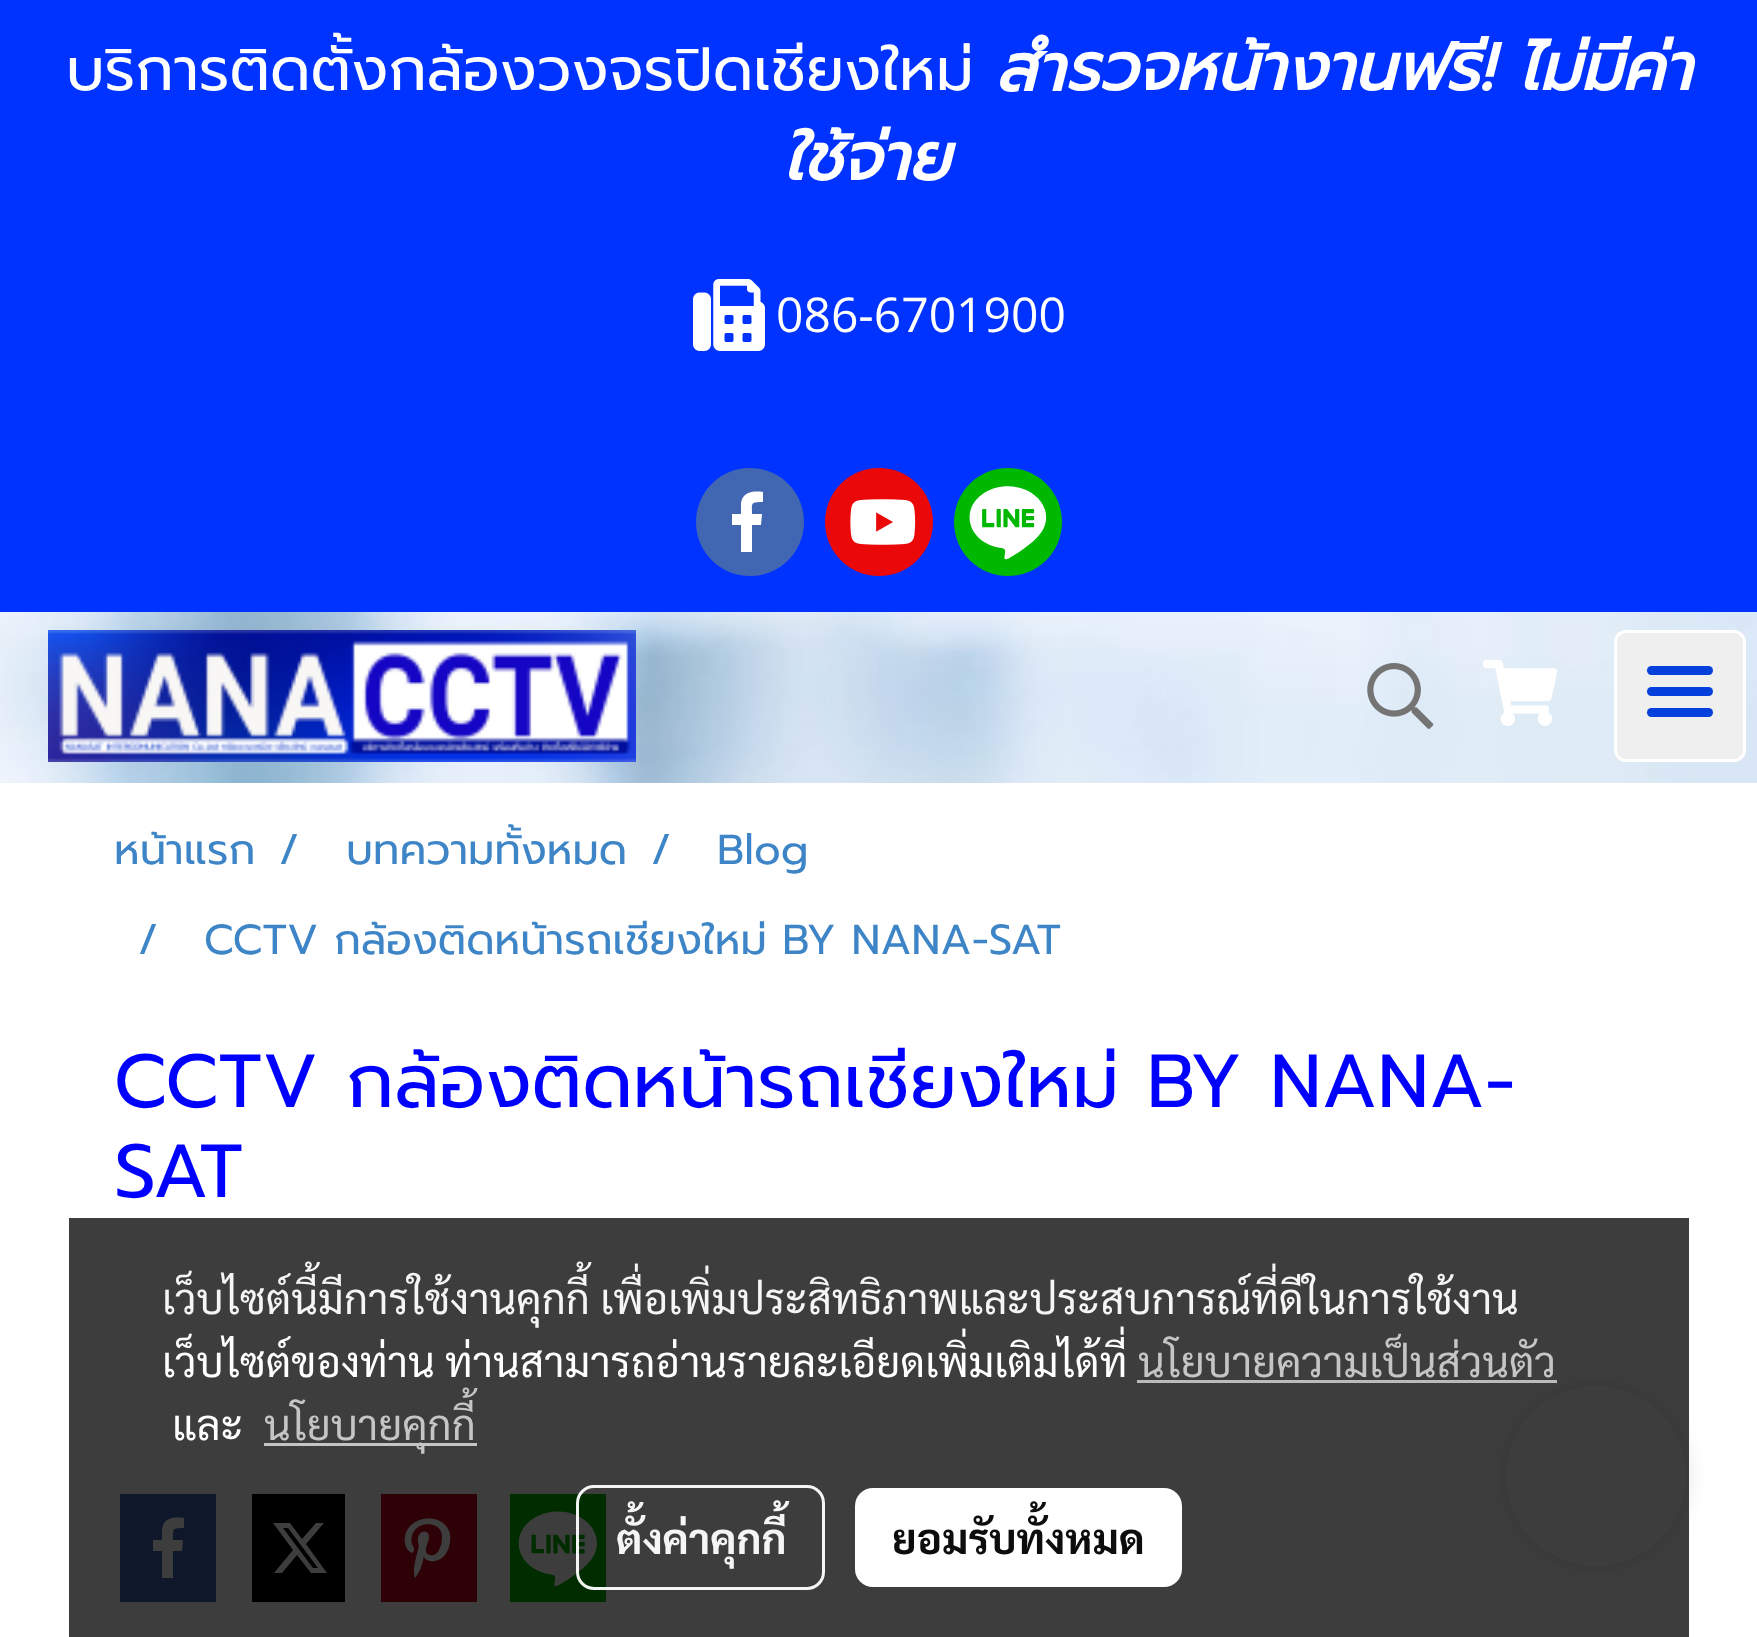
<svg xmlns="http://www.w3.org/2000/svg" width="1757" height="1637">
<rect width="100%" height="100%" fill="#fff"/>
<rect width="1757" height="612" fill="#03f"/>
<text x="66" y="90" style="font-family:Prompt;font-size:60px;fill:#fff">บริการติดตั้งกล้องวงจรปิดเชียงใหม่</text>
<text x="996" y="90" style="font-family:Prompt;font-size:66px;font-weight:bold;font-style:italic;fill:#fff">สำรวจหน้างานฟรี! ไม่มีค่า</text>
<text x="783" y="180" style="font-family:Prompt;font-size:66px;font-weight:bold;font-style:italic;fill:#fff">ใช้จ่าย</text>
<image x="693" y="279" width="72" height="72" href="media/1.png"/>
<text x="776" y="332" style="font-family:Open Sans;font-size:48px;fill:#fff">086-6701900</text>
<circle cx="750" cy="522" r="54" fill="#4267b2"/>
<path d="M741 552v-27h-9v-11h9v-11c2-12 13-12 22-11v10c-13 0-11 1-11 12h10l-1 11h-9v27" fill="#fff"/>
<circle cx="879" cy="522" r="54" fill="#eb0808"/>
<image x="850" y="499" width="66" height="46" href="media/2.png"/>
<circle cx="1008" cy="522" r="54" fill="#00b800"/>
<image x="955" y="469" width="106" height="106" href="media/3.png"/>
<image x="0" y="612" width="1757" height="171" href="media/4.png"/>
<image x="48" y="630" width="588" height="132" href="media/5.png"/>
<image x="1367" y="663" width="67" height="66" href="media/6.png"/>
<image x="1483" y="660" width="75" height="66" href="media/7.png"/>
<rect x="1615.5" y="631.5" width="129" height="129" rx="10.5" fill="#efefef" stroke="#fff" stroke-width="3"/>
<rect x="1647" y="687" width="66" height="9" rx="4.5" fill="#0540dd"/>
<rect x="1647" y="666" width="66" height="9" rx="4.5" fill="#0540dd"/>
<rect x="1647" y="708" width="66" height="9" rx="4.5" fill="#0540dd"/>
<text x="114" y="864" style="font-family:Prompt;font-size:42px;fill:#3d85c6">หน้าแรก</text>
<text x="279" y="864" style="font-family:Prompt;font-size:42px;fill:#3d85c6">/</text>
<text x="346" y="864" style="font-family:Prompt;font-size:42px;fill:#3d85c6">บทความทั้งหมด</text>
<text x="651" y="864" style="font-family:Prompt;font-size:42px;fill:#3d85c6">/</text>
<text x="717" y="864" style="font-family:Prompt;font-size:42px;fill:#3d85c6">Blog</text>
<text x="138" y="954" style="font-family:Prompt;font-size:42px;fill:#3d85c6">/</text>
<text x="204" y="954" style="font-family:Prompt;font-size:42px;fill:#3d85c6">CCTV กล้องติดหน้ารถเชียงใหม่ BY NANA-SAT</text>
<text x="114" y="1107" style="font-family:Prompt;font-size:75px;fill:#00f">CCTV กล้องติดหน้ารถเชียงใหม่ BY NANA-</text>
<text x="114" y="1197" style="font-family:Prompt;font-size:75px;fill:#00f">SAT</text>
<rect x="120" y="1494" width="96" height="108" fill="#4267b2"/>
<path d="M162 1578v-27h-9v-11h9v-11c2-12 13-12 22-11v10c-13 0-11 1-11 12h10l-1 11h-9v27" fill="#fff"/>
<rect x="252" y="1494" width="93" height="108" fill="#000"/>
<path d="M316 1523h8l-18 21l21 29h-16l-14-18l-15 18h-8l19-23l-20-27h17l12 16zm-3 45h5l-30-40h-5z" fill="#fff"/>
<rect x="381" y="1494" width="96" height="108" fill="#bd081c"/>
<image x="404" y="1518" width="47" height="60" href="media/8.png"/>
<rect x="510" y="1494" width="96" height="108" fill="#00b800"/>
<image x="518" y="1511" width="79" height="75" href="media/9.png"/>
<rect x="1506" y="1386" width="180" height="180" rx="90" fill="#00000024" filter="blur(10.5px)"/>
<circle cx="1596" cy="1476" r="90" fill="#fff"/>
<rect x="69" y="1218" width="1620" height="419" fill="#000000c2"/>
<text x="162" y="1314" style="font-family:Sarabun;font-size:42px;fill:#f5f5f5">เว็บไซต์นี้มีการใช้งานคุกกี้ เพื่อเพิ่มประสิทธิภาพและประสบการณ์ที่ดีในการใช้งาน</text>
<text x="162" y="1377" style="font-family:Sarabun;font-size:42px;fill:#fff">เว็บไซต์ของท่าน ท่านสามารถอ่านรายละเอียดเพิ่มเติมได้ที่</text>
<text x="1138" y="1377" style="font-family:Sarabun;font-size:42px;fill:#c5c5c5">นโยบายความเป็นส่วนตัว</text>
<rect x="1137" y="1380" width="420" height="3" fill="#bbb"/>
<text x="172" y="1440" style="font-family:Sarabun;font-size:42px;fill:#fff">และ</text>
<rect x="264" y="1443" width="213" height="3" fill="#c5c5c5"/>
<text x="264" y="1440" style="font-family:Sarabun;font-size:42px;fill:#c5c5c5">นโยบายคุกกี้</text>
<rect x="577.5" y="1486.5" width="246" height="102" rx="16.5" fill="none" stroke="#fffffff2" stroke-width="3"/>
<text x="616" y="1554" style="font-family:Sarabun;font-size:42px;font-weight:bold;fill:#f5f5f5">ตั้งค่าคุกกี้</text>
<rect x="855" y="1488" width="327" height="99" rx="18" fill="#fff"/>
<text x="892" y="1554" style="font-family:Sarabun;font-size:42px;font-weight:bold;fill:#0d0d0d">ยอมรับทั้งหมด</text>
</svg>
